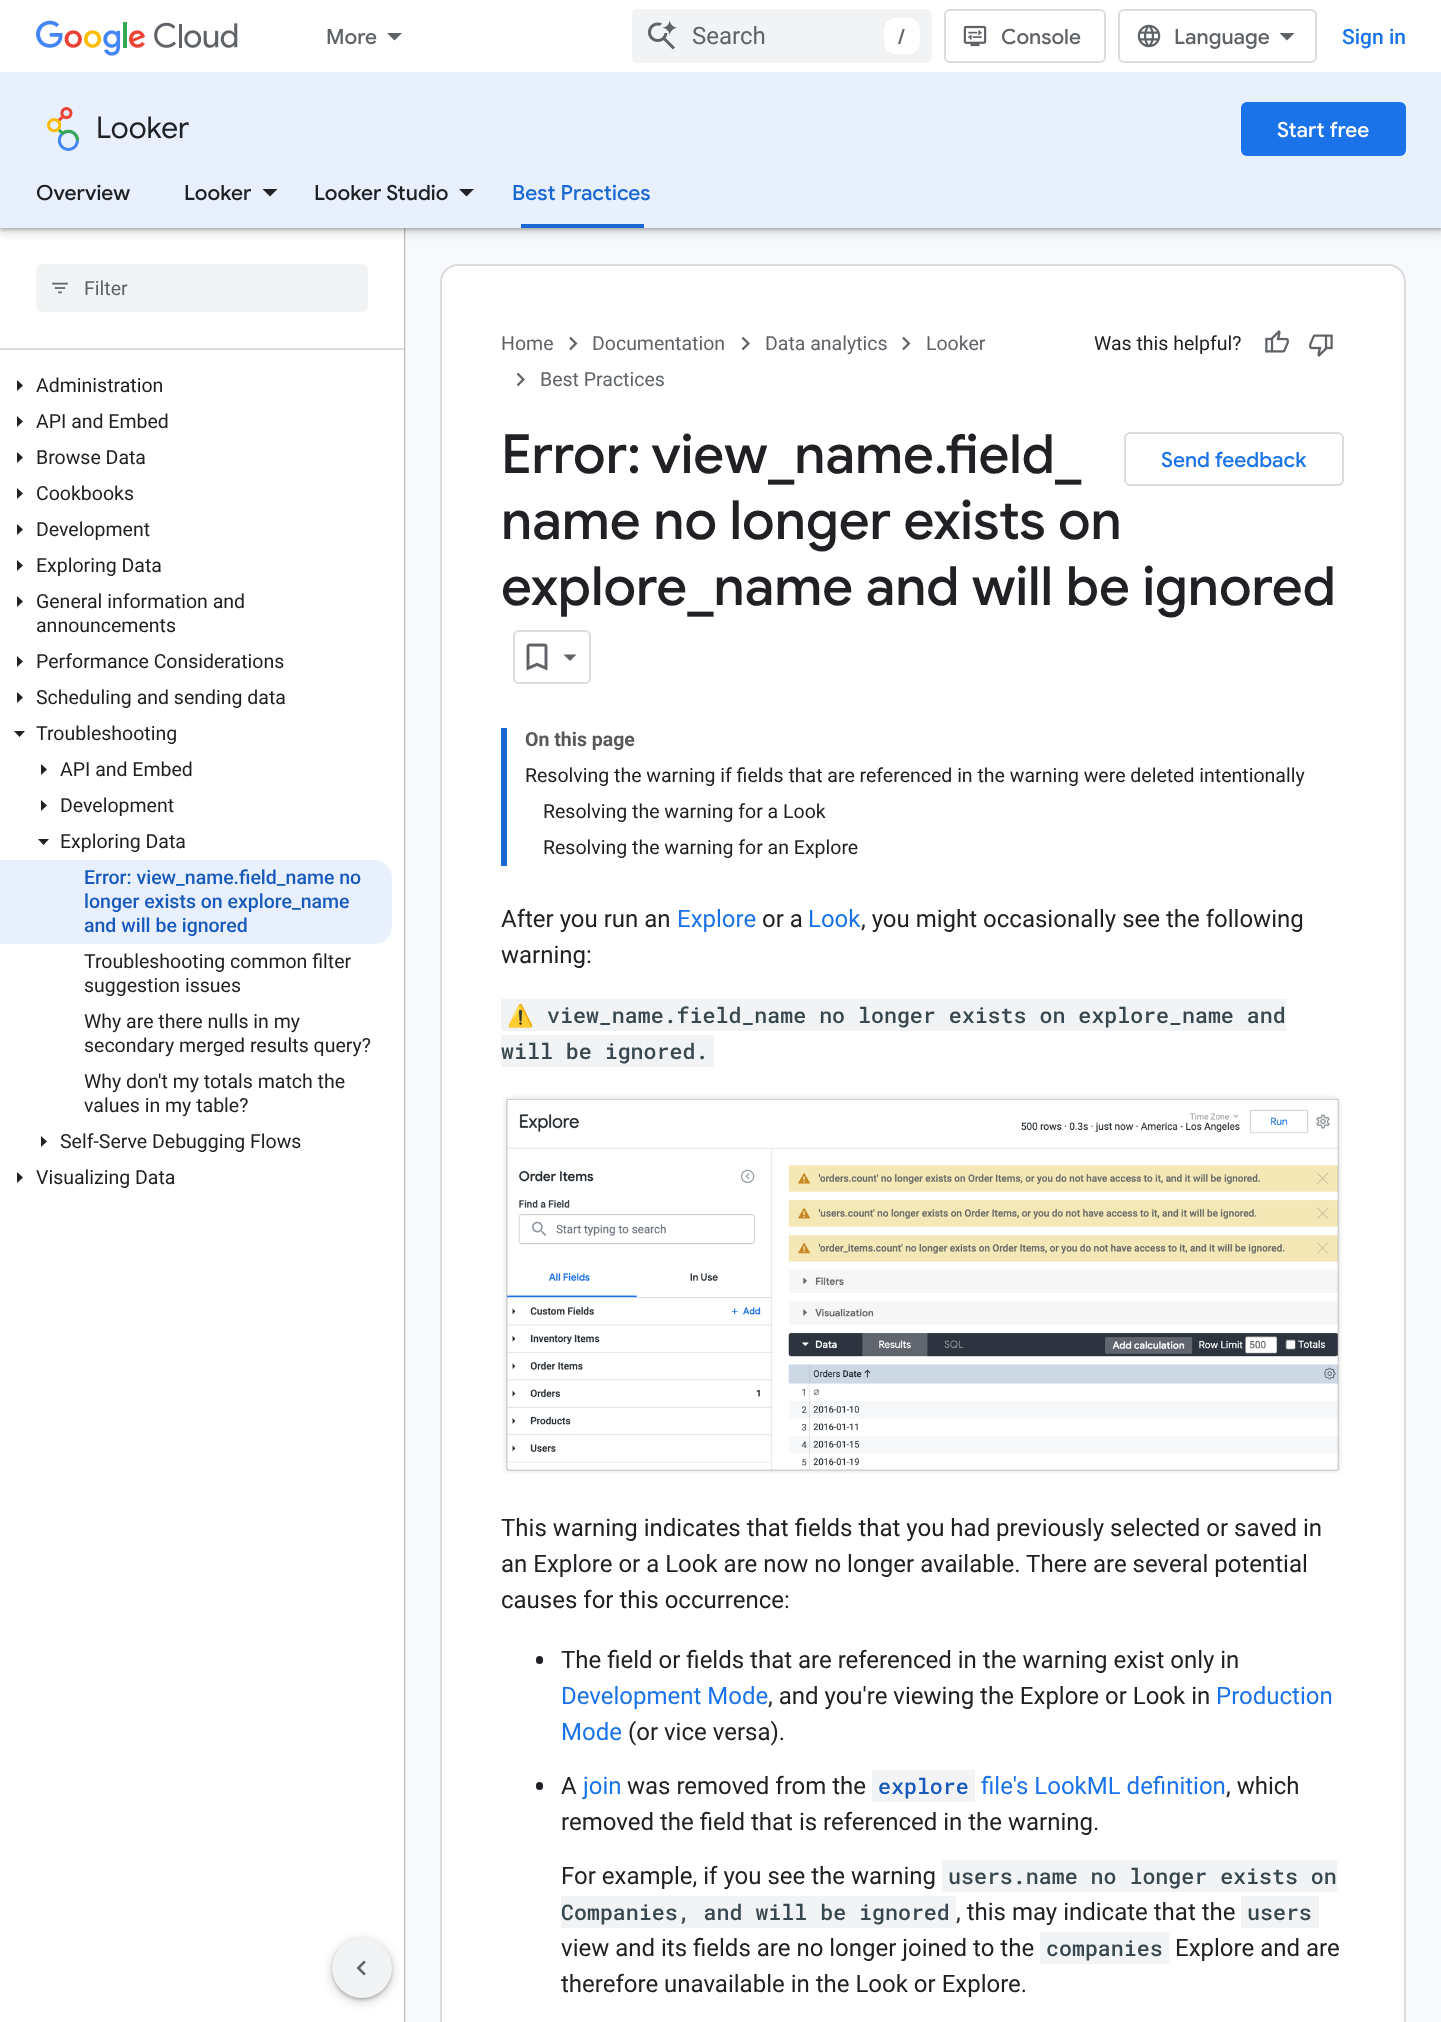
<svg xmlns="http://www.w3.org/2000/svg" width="1441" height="2022">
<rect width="100%" height="100%" fill="#f8f9fa"/>
<rect y="2" width="404" height="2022" fill="#3c4043" filter="blur(1px)"/>
<rect y="228" width="404" height="1794" fill="#fff"/>
<rect x="-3" y="72" width="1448" height="162" fill="#3c404326" filter="blur(4.5px)"/>
<rect y="74" width="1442" height="156" fill="#3c40434d" filter="blur(1.5px)"/>
<rect width="1441" height="72" fill="#fff"/>
<image x="36" y="20" width="202" height="36" href="media/1.png"/>
<text x="326" y="44" style="font-family:Google Sans;font-size:21px;font-weight:500;fill:#5f6368">More</text>
<path d="M387 33h15l-7.5 7.5z" fill="#5f6368"/>
<rect x="632" y="9" width="300" height="54" rx="6" fill="#f1f3f4"/>
<image x="648" y="20" width="30" height="30" href="media/2.png"/>
<text x="692" y="44" style="font-family:Roboto;font-size:24px;fill:#5f6368">Search</text>
<rect x="884" y="18" width="36" height="36" rx="12" fill="#fff"/>
<text x="898" y="44" style="font-family:Google Sans;font-size:21px;font-weight:500;fill:#5f6368">/</text>
<rect x="945" y="10" width="160" height="52" rx="5" fill="none" stroke="#dadce0" stroke-width="2"/>
<image x="963" y="25" width="24" height="22" href="media/3.png"/>
<text x="1001" y="44" style="font-family:Google Sans;font-size:21px;font-weight:500;fill:#5f6368">Console</text>
<rect x="1119" y="10" width="197" height="52" rx="5" fill="none" stroke="#dadce0" stroke-width="2"/>
<image x="1137" y="24" width="24" height="24" href="media/4.png"/>
<text x="1174" y="44" style="font-family:Google Sans;font-size:21px;font-weight:500;fill:#5f6368">Language</text>
<path d="M1287 40.5l-7.5-7.5h15z" fill="#5f6368"/>
<text x="1342" y="44" style="font-family:Roboto;font-size:21px;font-weight:500;fill:#1a73e8">Sign in</text>
<rect y="72" width="1441" height="156" fill="#e8f0fe"/>
<image x="47" y="107" width="32" height="44" href="media/5.png"/>
<text x="96" y="138" style="font-family:Google Sans;font-size:30px;fill:#202124">Looker</text>
<rect x="1241" y="102" width="165" height="54" rx="6" fill="#1a73e8"/>
<text x="1277" y="137" style="font-family:Google Sans;font-size:21px;font-weight:500;fill:#fff">Start free</text>
<text x="36" y="200" style="font-family:Google Sans;font-size:21px;font-weight:500;fill:#202124">Overview</text>
<text x="184" y="200" style="font-family:Google Sans;font-size:21px;font-weight:500;fill:#202124">Looker</text>
<path d="M262.5 189h15l-7.5 7.5z" fill="#202124"/>
<text x="314" y="200" style="font-family:Google Sans;font-size:21px;font-weight:500;fill:#202124">Looker Studio</text>
<path d="M459 189h15l-7.5 7.5z" fill="#202124"/>
<text x="512" y="200" style="font-family:Google Sans;font-size:21px;font-weight:500;fill:#1967d2">Best Practices</text>
<rect x="521" y="224" width="123" height="4" fill="#1967d2"/>
<rect y="348" width="404" height="2" fill="#dadce0"/>
<rect x="36" y="264" width="332" height="48" rx="6" fill="#f1f3f4"/>
<image x="52" y="282" width="16" height="12" href="media/6.png"/>
<text x="84" y="295" style="font-family:Roboto;font-size:19.5px;fill:#5f6368">Filter</text>
<path d="M17 391v-11l6 5.5z" fill="#202124"/>
<text x="36" y="392" style="font-family:Roboto;font-size:19.5px;fill:#202124">Administration</text>
<path d="M17 427v-11l6 5.5z" fill="#202124"/>
<text x="36" y="428" style="font-family:Roboto;font-size:19.5px;fill:#202124">API and Embed</text>
<path d="M17 463v-11l6 5.5z" fill="#202124"/>
<text x="36" y="464" style="font-family:Roboto;font-size:19.5px;fill:#202124">Browse Data</text>
<path d="M17 499v-11l6 5.5z" fill="#202124"/>
<text x="36" y="500" style="font-family:Roboto;font-size:19.5px;fill:#202124">Cookbooks</text>
<path d="M17 535v-11l6 5.5z" fill="#202124"/>
<text x="36" y="536" style="font-family:Roboto;font-size:19.5px;fill:#202124">Development</text>
<path d="M17 571v-11l6 5.5z" fill="#202124"/>
<text x="36" y="572" style="font-family:Roboto;font-size:19.5px;fill:#202124">Exploring Data</text>
<path d="M17 607v-11l6 5.5z" fill="#202124"/>
<text x="36" y="608" style="font-family:Roboto;font-size:19.5px;fill:#202124">General information and</text>
<text x="36" y="632" style="font-family:Roboto;font-size:19.5px;fill:#202124">announcements</text>
<path d="M17 667v-11l6 5.5z" fill="#202124"/>
<text x="36" y="668" style="font-family:Roboto;font-size:19.5px;fill:#202124">Performance Considerations</text>
<path d="M17 703v-11l6 5.5z" fill="#202124"/>
<text x="36" y="704" style="font-family:Roboto;font-size:19.5px;fill:#202124">Scheduling and sending data</text>
<path d="M14 731h11l-5.5 6z" fill="#202124"/>
<text x="36" y="740" style="font-family:Roboto;font-size:19.5px;fill:#202124">Troubleshooting</text>
<path d="M41 775v-11l6 5.5z" fill="#202124"/>
<text x="60" y="776" style="font-family:Roboto;font-size:19.5px;fill:#202124">API and Embed</text>
<path d="M41 811v-11l6 5.5z" fill="#202124"/>
<text x="60" y="812" style="font-family:Roboto;font-size:19.5px;fill:#202124">Development</text>
<path d="M38 839h11l-5.5 6z" fill="#202124"/>
<text x="60" y="848" style="font-family:Roboto;font-size:19.5px;fill:#202124">Exploring Data</text>
<path d="M0 860h374c10 0 18 8 18 18v48c0 10-8 18-18 18h-374z" fill="#e8f0fe"/>
<text x="84" y="884" style="font-family:Roboto;font-size:19.5px;font-weight:500;fill:#185abc">Error: view_name.field_name no</text>
<text x="84" y="908" style="font-family:Roboto;font-size:19.5px;font-weight:500;fill:#185abc">longer exists on explore_name</text>
<text x="84" y="932" style="font-family:Roboto;font-size:19.5px;font-weight:500;fill:#185abc">and will be ignored</text>
<text x="84" y="968" style="font-family:Roboto;font-size:19.5px;fill:#202124">Troubleshooting common filter</text>
<text x="84" y="992" style="font-family:Roboto;font-size:19.5px;fill:#202124">suggestion issues</text>
<text x="84" y="1028" style="font-family:Roboto;font-size:19.5px;fill:#202124">Why are there nulls in my</text>
<text x="84" y="1052" style="font-family:Roboto;font-size:19.5px;fill:#202124">secondary merged results query?</text>
<text x="84" y="1088" style="font-family:Roboto;font-size:19.5px;fill:#202124">Why don't my totals match the</text>
<text x="84" y="1112" style="font-family:Roboto;font-size:19.5px;fill:#202124">values in my table?</text>
<path d="M41 1147v-11l6 5.5z" fill="#202124"/>
<text x="60" y="1148" style="font-family:Roboto;font-size:19.5px;fill:#202124">Self-Serve Debugging Flows</text>
<path d="M17 1183v-11l6 5.5z" fill="#202124"/>
<text x="36" y="1184" style="font-family:Roboto;font-size:19.5px;fill:#202124">Visualizing Data</text>
<rect x="441" y="265" width="964" height="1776" rx="17" fill="#fff" stroke="#dadce0" stroke-width="2"/>
<text x="501" y="350" style="font-family:Roboto;font-size:19.5px;fill:#5f6368">Home</text>
<image x="569" y="336" width="9" height="15" href="media/7.png"/>
<text x="592" y="350" style="font-family:Roboto;font-size:19.5px;fill:#5f6368">Documentation</text>
<image x="741" y="336" width="9" height="15" href="media/8.png"/>
<text x="765" y="350" style="font-family:Roboto;font-size:19.5px;fill:#5f6368">Data analytics</text>
<image x="902" y="336" width="9" height="15" href="media/7.png"/>
<text x="926" y="350" style="font-family:Roboto;font-size:19.5px;fill:#5f6368">Looker</text>
<image x="516" y="372" width="9" height="15" href="media/8.png"/>
<text x="540" y="386" style="font-family:Roboto;font-size:19.5px;fill:#5f6368">Best Practices</text>
<text x="1094" y="350" style="font-family:Roboto;font-size:19.5px;fill:#202124">Was this helpful?</text>
<image x="1265" y="330" width="24" height="23" href="media/9.png"/>
<image x="1309" y="334" width="24" height="23" href="media/10.png"/>
<text x="501" y="473" word-spacing="-2" style="font-family:Google Sans;font-size:54px;font-weight:500;fill:#202124">Error: view</text>
<text x="768" y="473" style="font-family:Google Sans;font-size:54px;font-weight:500;fill:#202124">_name.field_</text>
<text x="501" y="539" style="font-family:Google Sans;font-size:54px;font-weight:500;fill:#202124">name no longer exists on</text>
<text x="501" y="605" style="font-family:Google Sans;font-size:54px;font-weight:500;fill:#202124">explore_name and will be ignored</text>
<rect x="514" y="631" width="76" height="52" rx="5" fill="none" stroke="#dadce0" stroke-width="2"/>
<image x="526" y="643" width="22" height="28" href="media/11.png"/>
<path d="M563.5 654.5h13l-6.5 6.5z" fill="#5f6368"/>
<rect x="1125" y="433" width="218" height="52" rx="5" fill="none" stroke="#dadce0" stroke-width="2"/>
<text x="1161" y="467" style="font-family:Google Sans;font-size:21px;font-weight:500;fill:#1a73e8">Send feedback</text>
<rect x="501" y="728" width="6" height="138" fill="#1967d2"/>
<text x="525" y="746" style="font-family:Roboto;font-size:19.5px;font-weight:bold;fill:#595959">On this page</text>
<text x="525" y="782" style="font-family:Roboto;font-size:19.5px;fill:#202124">Resolving the warning if fields that are referenced in the warning were deleted intentionally</text>
<text x="543" y="818" style="font-family:Roboto;font-size:19.5px;fill:#202124">Resolving the warning for a Look</text>
<text x="543" y="854" style="font-family:Roboto;font-size:19.5px;fill:#202124">Resolving the warning for an Explore</text>
<text x="501" y="927" style="font-family:Roboto;font-size:24px;fill:#202124">After you run an</text>
<text x="677" y="927" style="font-family:Roboto;font-size:24px;fill:#1a73e8">Explore</text>
<text x="762" y="927" style="font-family:Roboto;font-size:24px;fill:#202124">or a</text>
<text x="808" y="927" style="font-family:Roboto;font-size:24px;fill:#1a73e8">Look</text>
<text x="861" y="927" style="font-family:Roboto;font-size:24px;fill:#202124">, you might occasionally see the following</text>
<text x="501" y="963" style="font-family:Roboto;font-size:24px;fill:#202124">warning:</text>
<rect x="501" y="999" width="785" height="32" fill="#f1f3f4"/>
<text x="507" y="1023" style="font-family:Noto Color Emoji;font-size:21.6px;fill:#37474f">⚠️</text>
<text x="547" y="1023" style="font-family:Roboto Mono;font-size:21.6px;font-weight:500;fill:#37474f">view_name.field_name no longer exists on explore_name and</text>
<rect x="501" y="1035" width="213" height="32" fill="#f1f3f4"/>
<text x="501" y="1059" style="font-family:Roboto Mono;font-size:21.6px;font-weight:500;fill:#37474f">will be ignored.</text>
<image x="503" y="1095" width="839" height="379" href="media/12.png"/>
<text x="501" y="1536" style="font-family:Roboto;font-size:24px;fill:#202124">This warning indicates that fields that you had previously selected or saved in</text>
<text x="501" y="1572" style="font-family:Roboto;font-size:24px;fill:#202124">an Explore or a Look are now no longer available. There are several potential</text>
<text x="501" y="1608" style="font-family:Roboto;font-size:24px;fill:#202124">causes for this occurrence:</text>
<rect x="536" y="1656" width="7" height="8" rx="3.5" fill="#202124"/>
<text x="561" y="1668" style="font-family:Roboto;font-size:24px;fill:#202124">The field or fields that are referenced in the warning exist only in</text>
<text x="561" y="1704" style="font-family:Roboto;font-size:24px;fill:#1a73e8">Development Mode</text>
<text x="768" y="1704" style="font-family:Roboto;font-size:24px;fill:#202124">, and you're viewing the Explore or Look in</text>
<text x="1216" y="1704" style="font-family:Roboto;font-size:24px;fill:#1a73e8">Production</text>
<text x="561" y="1740" style="font-family:Roboto;font-size:24px;fill:#1a73e8">Mode</text>
<text x="628" y="1740" style="font-family:Roboto;font-size:24px;fill:#202124">(or vice versa).</text>
<rect x="536" y="1782" width="7" height="8" rx="3.5" fill="#202124"/>
<text x="561" y="1794" style="font-family:Roboto;font-size:24px;fill:#202124">A</text>
<text x="583" y="1794" style="font-family:Roboto;font-size:24px;fill:#1a73e8">join</text>
<text x="627" y="1794" style="font-family:Roboto;font-size:24px;fill:#202124">was removed from the</text>
<rect x="872" y="1770" width="103" height="32" fill="#f1f3f4"/>
<text x="878" y="1794" style="font-family:Roboto Mono;font-size:21.6px;font-weight:500;fill:#185abc">explore</text>
<text x="981" y="1794" style="font-family:Roboto;font-size:24px;fill:#1a73e8">file's LookML definition</text>
<text x="1226" y="1794" style="font-family:Roboto;font-size:24px;fill:#202124">, which</text>
<text x="561" y="1830" style="font-family:Roboto;font-size:24px;fill:#202124">removed the field that is referenced in the warning.</text>
<text x="561" y="1884" style="font-family:Roboto;font-size:24px;fill:#202124">For example, if you see the warning</text>
<rect x="942" y="1860" width="395" height="32" fill="#f1f3f4"/>
<text x="948" y="1884" style="font-family:Roboto Mono;font-size:21.6px;font-weight:500;fill:#37474f">users.name no longer exists on</text>
<rect x="561" y="1896" width="395" height="32" fill="#f1f3f4"/>
<text x="561" y="1920" style="font-family:Roboto Mono;font-size:21.6px;font-weight:500;fill:#37474f">Companies, and will be ignored</text>
<text x="956" y="1920" style="font-family:Roboto;font-size:24px;fill:#202124">, this may indicate that the</text>
<rect x="1241" y="1896" width="78" height="32" fill="#f1f3f4"/>
<text x="1247" y="1920" style="font-family:Roboto Mono;font-size:21.6px;font-weight:500;fill:#37474f">users</text>
<text x="561" y="1956" style="font-family:Roboto;font-size:24px;fill:#202124">view and its fields are no longer joined to the</text>
<rect x="1040" y="1932" width="129" height="32" fill="#f1f3f4"/>
<text x="1046" y="1956" style="font-family:Roboto Mono;font-size:21.6px;font-weight:500;fill:#37474f">companies</text>
<text x="1175" y="1956" style="font-family:Roboto;font-size:24px;fill:#202124">Explore and are</text>
<text x="561" y="1992" style="font-family:Roboto;font-size:24px;fill:#202124">therefore unavailable in the Look or Explore.</text>
<rect x="329" y="1938" width="66" height="66" rx="33" fill="#3c404326" filter="blur(4.5px)"/>
<rect x="332" y="1940" width="60" height="60" rx="30" fill="#3c40434d" filter="blur(1.5px)"/>
<circle cx="362" cy="1968" r="30" fill="#f1f3f4"/>
<image x="356" y="1960" width="10" height="16" href="media/13.png"/>
</svg>
